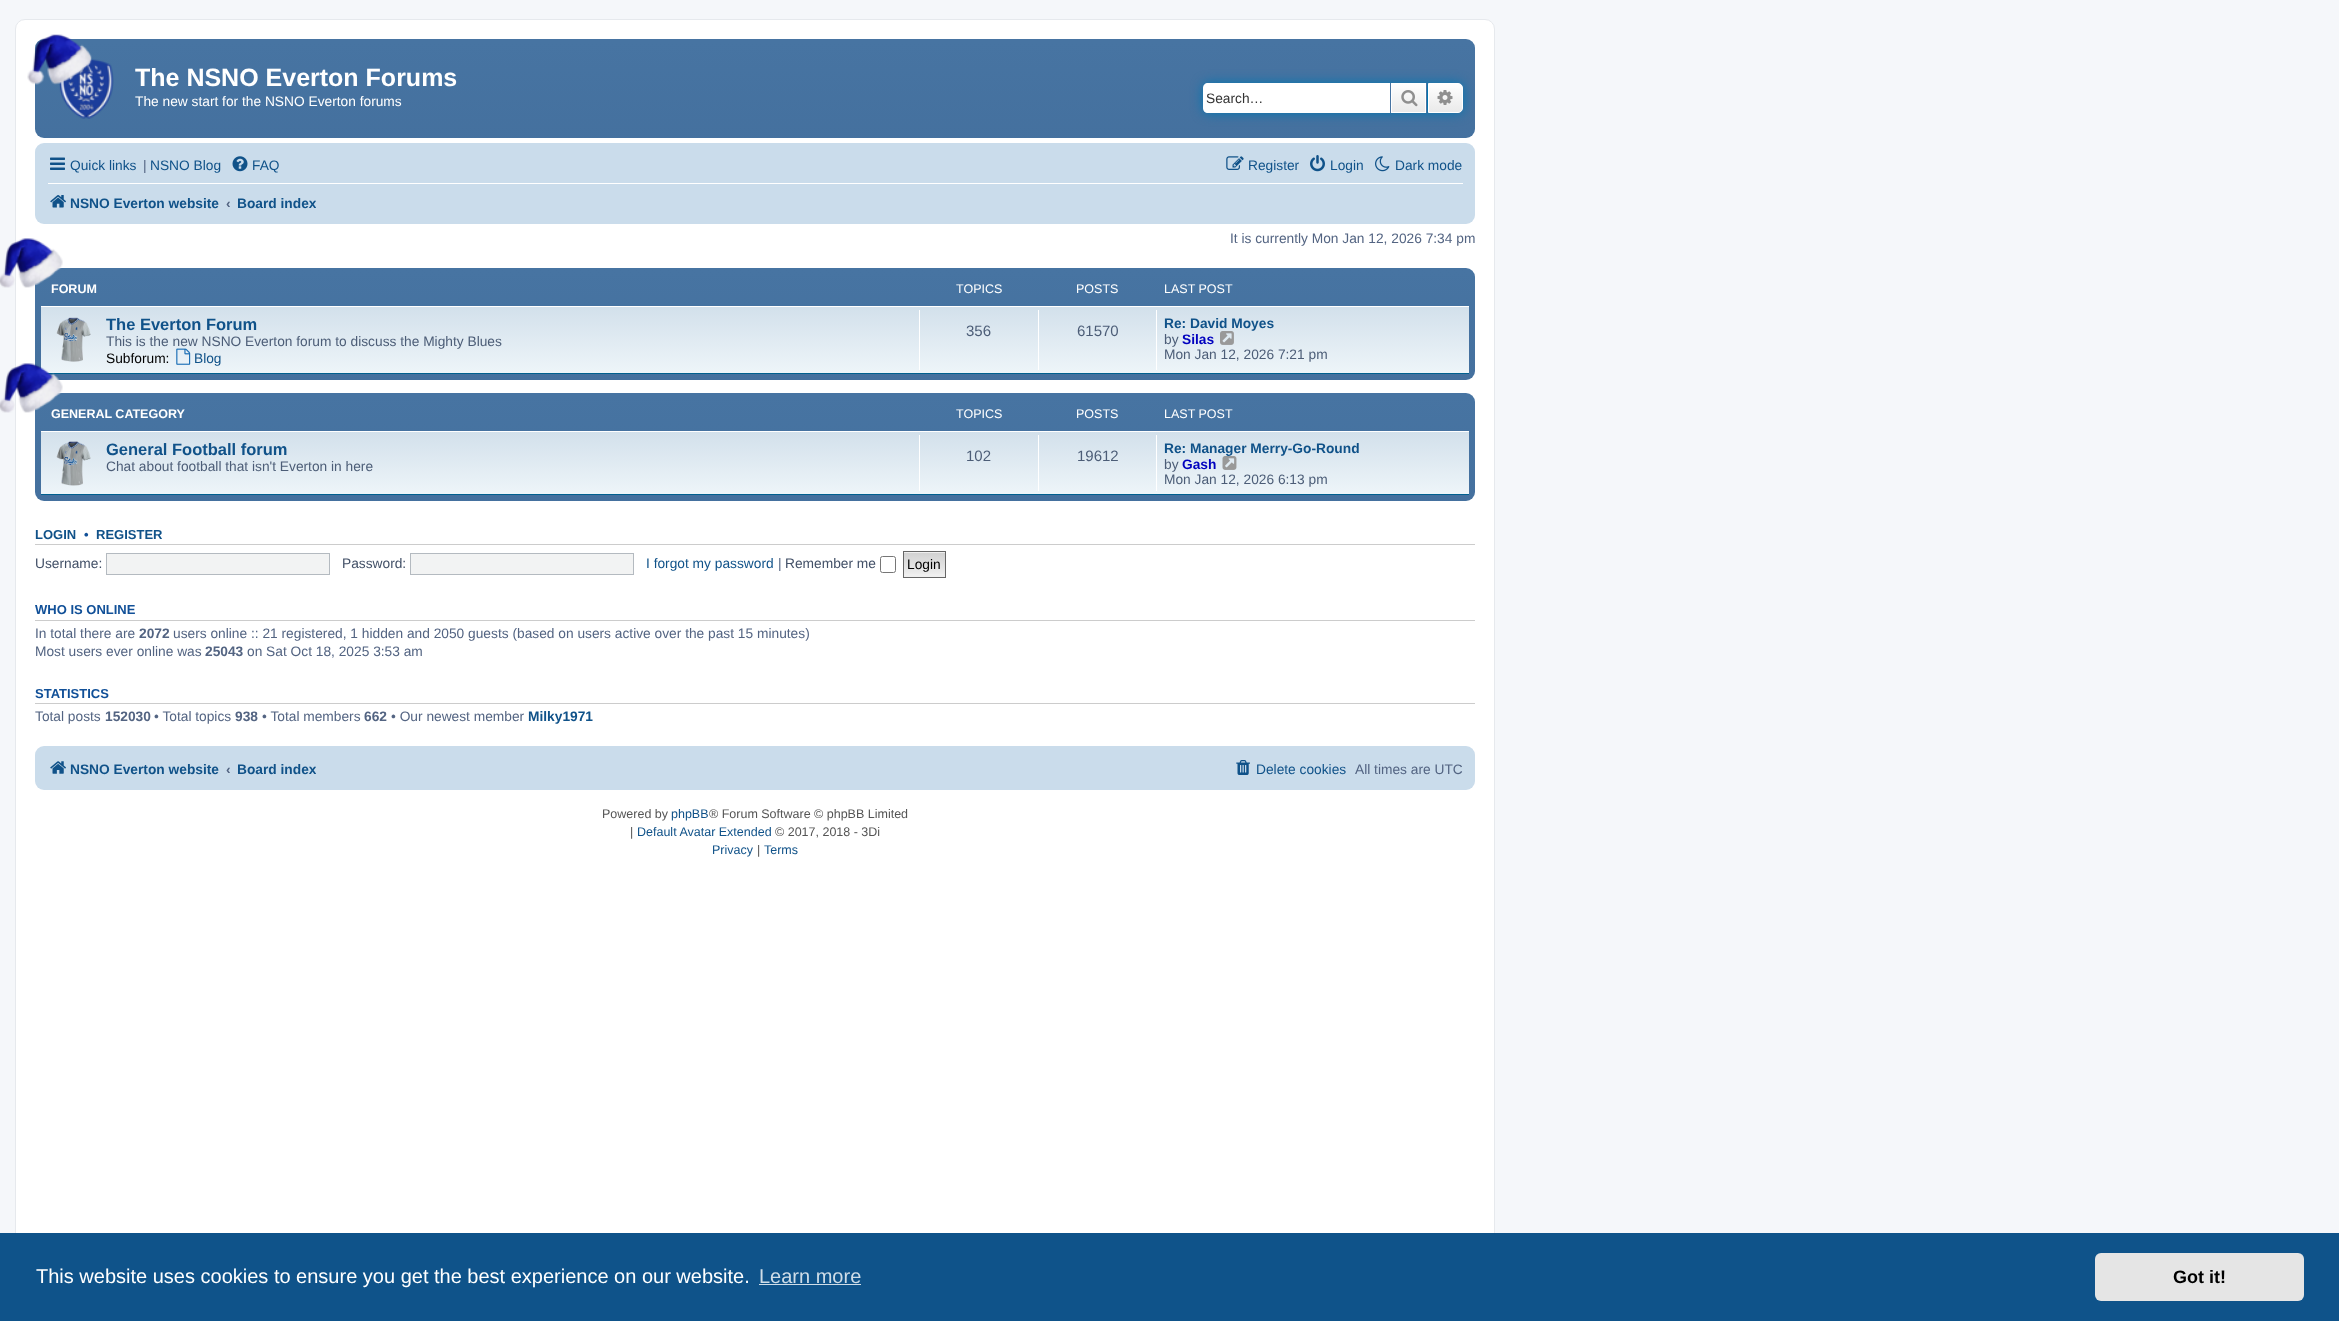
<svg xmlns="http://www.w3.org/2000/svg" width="2339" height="1321">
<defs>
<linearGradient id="g1" gradientUnits="userSpaceOnUse" x1="755" y1="39" x2="755" y2="154"><stop offset="0" stop-color="#4774a2"/><stop offset="0.02" stop-color="#4774a2"/><stop offset="1" stop-color="#44709e"/><stop offset="1" stop-color="#2c5687"/></linearGradient>
<linearGradient id="g2" gradientUnits="userSpaceOnUse" x1="1409" y1="83" x2="1409" y2="113"><stop offset="0" stop-color="#fff"/><stop offset="1" stop-color="#e9e9e9"/></linearGradient>
<linearGradient id="g3" gradientUnits="userSpaceOnUse" x1="1445" y1="83" x2="1445" y2="113"><stop offset="0" stop-color="#fff"/><stop offset="1" stop-color="#e9e9e9"/></linearGradient>
<clipPath id="clip1"><rect x="238" y="188" width="78" height="30"/></clipPath>
<linearGradient id="g4" gradientUnits="userSpaceOnUse" x1="755" y1="267" x2="755" y2="382"><stop offset="0" stop-color="#4774a2"/><stop offset="0.02" stop-color="#4774a2"/><stop offset="1" stop-color="#44709e"/><stop offset="1" stop-color="#2c5687"/></linearGradient>
<linearGradient id="g5" gradientUnits="userSpaceOnUse" x1="755" y1="306" x2="755" y2="374"><stop offset="0" stop-color="#d2e0eb"/><stop offset="1" stop-color="#eef5f9"/></linearGradient>
<linearGradient id="g6" gradientUnits="userSpaceOnUse" x1="755" y1="392" x2="755" y2="507"><stop offset="0" stop-color="#4774a2"/><stop offset="0.02" stop-color="#4774a2"/><stop offset="1" stop-color="#44709e"/><stop offset="1" stop-color="#2c5687"/></linearGradient>
<linearGradient id="g7" gradientUnits="userSpaceOnUse" x1="755" y1="431" x2="755" y2="495"><stop offset="0" stop-color="#d2e0eb"/><stop offset="1" stop-color="#eef5f9"/></linearGradient>
<linearGradient id="g8" gradientUnits="userSpaceOnUse" x1="924" y1="553" x2="924" y2="576"><stop offset="0" stop-color="#d2d2d2"/><stop offset="1" stop-color="#efefef"/></linearGradient>
<clipPath id="clip2"><rect x="238" y="754" width="78" height="30"/></clipPath>
</defs>
<rect width="100%" height="100%" fill="#f5f7fa"/>
<rect x="15.5" y="19.5" width="1479" height="1249" rx="9.5" fill="#fff" stroke="#e6e9ed"/>
<rect x="35" y="39" width="1440" height="99" rx="9" fill="url(#g1)"/>
<image x="59" y="58" width="55" height="61" href="media/2.png"/>
<image x="27" y="34" width="65" height="51" href="media/1.png"/>
<text x="135" y="86" style="font-family:Liberation Sans;font-size:25px;font-weight:bold;fill:#fff">The NSNO Everton Forums</text>
<text x="135" y="106" style="font-family:Liberation Sans;font-size:13.75px;fill:#fff">The new start for the NSNO Everton forums</text>
<rect x="1203" y="83" width="260" height="30" rx="5" fill="#0075b0" filter="blur(6px)"/>
<path d="M1208 83h182v30h-182c-3 0-5-2-5-5v-20c0-3 2-5 5-5z" fill="#fff"/>
<text x="1206" y="103" style="font-family:Liberation Sans;font-size:13.75px;fill:#333">Search…</text>
<rect x="1392" y="84" width="33" height="28" fill="url(#g2)"/>
<rect x="1391.5" y="83.5" width="34" height="29" fill="none" stroke="#fff"/>
<rect x="1426" y="83" width="1" height="30" fill="#4774a2"/>
<rect x="1390" y="83" width="1" height="30" fill="#4774a2"/>
<image x="1401" y="90" width="17" height="17" href="media/3.png"/>
<path d="M1428.5 83.5h29.5c2.5 0 4.5 2 4.5 4.5v20c0 2.5-2 4.5-4.5 4.5h-29.5z" fill="url(#g3)" stroke="#fff"/>
<image x="1437" y="90" width="16" height="15" href="media/4.png"/>
<rect x="35" y="143" width="1440" height="81" rx="9" fill="#cadceb"/>
<image x="50" y="157" width="15" height="13" href="media/5.png"/>
<text x="70" y="170" style="font-family:Liberation Sans;font-size:13.75px;fill:#105289">Quick links</text>
<text x="143" y="170" style="font-family:Liberation Sans;font-size:13.75px;fill:#536482">|</text>
<text x="150" y="170" style="font-family:Liberation Sans;font-size:13.75px;fill:#105289">NSNO Blog</text>
<image x="232" y="156" width="16" height="16" href="media/6.png"/>
<text x="252" y="170" style="font-family:Liberation Sans;font-size:13.75px;fill:#105289">FAQ</text>
<image x="1226" y="156" width="18" height="14" href="media/7.png"/>
<text x="1248" y="170" style="font-family:Liberation Sans;font-size:13.75px;fill:#105289">Register</text>
<image x="1310" y="155" width="15" height="17" href="media/8.png"/>
<text x="1330" y="170" style="font-family:Liberation Sans;font-size:13.75px;fill:#105289">Login</text>
<image x="1375" y="156" width="15" height="16" href="media/9.png"/>
<text x="1395" y="170" style="font-family:Liberation Sans;font-size:13.75px;fill:#105289">Dark mode</text>
<rect x="48" y="183" width="1415" height="1" fill="#fff"/>
<image x="50" y="195" width="16" height="13" href="media/10.png"/>
<text x="70" y="208" style="font-family:Liberation Sans;font-size:13.75px;font-weight:bold;fill:#105289">NSNO Everton website</text>
<text x="226" y="208" style="font-family:Liberation Sans;font-size:13.75px;font-weight:bold;fill:#536482">‹</text>
<g clip-path="url(#clip1)">
<text x="237" y="208" style="font-family:Liberation Sans;font-size:13.75px;font-weight:bold;fill:#105289">Board index</text>
</g>
<text x="1230" y="243" style="font-family:Liberation Sans;font-size:13.75px;fill:#536482">It is currently Mon Jan 12, 2026 7:34 pm</text>
<rect x="35" y="268" width="1440" height="112" rx="9" fill="url(#g4)"/>
<text x="51" y="293" style="font-family:Liberation Sans;font-size:12.5px;font-weight:bold;fill:#fff">FORUM</text>
<image x="0" y="238" width="63" height="50" href="media/11.png"/>
<text x="956" y="293" style="font-family:Liberation Sans;font-size:12.5px;fill:#fff">TOPICS</text>
<text x="1076" y="293" style="font-family:Liberation Sans;font-size:12.5px;fill:#fff">POSTS</text>
<text x="1164" y="293" style="font-family:Liberation Sans;font-size:12.5px;fill:#fff">LAST POST</text>
<rect x="41" y="307" width="1428" height="66" fill="url(#g5)"/>
<rect x="41" y="306" width="1428" height="1" fill="#fff"/>
<rect x="41" y="373" width="1428" height="1" fill="#00608f"/>
<image x="56" y="317" width="35" height="45" href="media/12.png"/>
<text x="106" y="330" style="font-family:Liberation Sans;font-size:16.5px;font-weight:bold;fill:#105289">The Everton Forum</text>
<text x="106" y="346" style="font-family:Liberation Sans;font-size:13.75px;fill:#4c5d77">This is the new NSNO Everton forum to discuss the Mighty Blues</text>
<text x="106" y="363" style="font-family:Liberation Sans;font-size:13.75px;fill:#000">Subforum:</text>
<image x="176" y="348" width="15" height="17" href="media/13.png"/>
<text x="194" y="363" style="font-family:Liberation Sans;font-size:13.75px;fill:#105289">Blog</text>
<rect x="919" y="310" width="1" height="60" fill="#fff"/>
<text x="966" y="336" style="font-family:Liberation Sans;font-size:15px;fill:#4c5d77">356</text>
<rect x="1038" y="310" width="1" height="60" fill="#fff"/>
<text x="1077" y="336" style="font-family:Liberation Sans;font-size:15px;fill:#4c5d77">61570</text>
<rect x="1156" y="310" width="1" height="60" fill="#fff"/>
<text x="1164" y="328" style="font-family:Liberation Sans;font-size:13.75px;font-weight:bold;fill:#105289">Re: David Moyes</text>
<text x="1164" y="344" style="font-family:Liberation Sans;font-size:13.75px;fill:#4c5d77">by</text>
<text x="1182" y="344" style="font-family:Liberation Sans;font-size:13.75px;font-weight:bold;fill:#0000bf">Silas</text>
<image x="1220" y="331" width="14" height="14" href="media/14.png"/>
<text x="1164" y="359" style="font-family:Liberation Sans;font-size:13.75px;fill:#4c5d77">Mon Jan 12, 2026 7:21 pm</text>
<rect x="35" y="393" width="1440" height="108" rx="9" fill="url(#g6)"/>
<text x="51" y="418" style="font-family:Liberation Sans;font-size:12.5px;font-weight:bold;fill:#fff">GENERAL CATEGORY</text>
<image x="0" y="363" width="63" height="50" href="media/15.png"/>
<text x="956" y="418" style="font-family:Liberation Sans;font-size:12.5px;fill:#fff">TOPICS</text>
<text x="1076" y="418" style="font-family:Liberation Sans;font-size:12.5px;fill:#fff">POSTS</text>
<text x="1164" y="418" style="font-family:Liberation Sans;font-size:12.5px;fill:#fff">LAST POST</text>
<rect x="41" y="432" width="1428" height="62" fill="url(#g7)"/>
<rect x="41" y="431" width="1428" height="1" fill="#fff"/>
<rect x="41" y="494" width="1428" height="1" fill="#00608f"/>
<image x="56" y="441" width="35" height="45" href="media/16.png"/>
<text x="106" y="455" style="font-family:Liberation Sans;font-size:16.5px;font-weight:bold;fill:#105289">General Football forum</text>
<text x="106" y="471" style="font-family:Liberation Sans;font-size:13.75px;fill:#4c5d77">Chat about football that isn't Everton in here</text>
<rect x="919" y="435" width="1" height="56" fill="#fff"/>
<text x="966" y="461" style="font-family:Liberation Sans;font-size:15px;fill:#4c5d77">102</text>
<rect x="1038" y="435" width="1" height="56" fill="#fff"/>
<text x="1077" y="461" style="font-family:Liberation Sans;font-size:15px;fill:#4c5d77">19612</text>
<rect x="1156" y="435" width="1" height="56" fill="#fff"/>
<text x="1164" y="453" style="font-family:Liberation Sans;font-size:13.75px;font-weight:bold;fill:#105289">Re: Manager Merry-Go-Round</text>
<text x="1164" y="469" style="font-family:Liberation Sans;font-size:13.75px;fill:#4c5d77">by</text>
<text x="1182" y="469" style="font-family:Liberation Sans;font-size:13.75px;font-weight:bold;fill:#0000bf">Gash</text>
<image x="1222" y="456" width="15" height="14" href="media/17.png"/>
<text x="1164" y="484" style="font-family:Liberation Sans;font-size:13.75px;fill:#4c5d77">Mon Jan 12, 2026 6:13 pm</text>
<rect x="35" y="544" width="1440" height="1" fill="#ccc"/>
<text x="35" y="539" style="font-family:Liberation Sans;font-size:13px;font-weight:bold;fill:#105289">LOGIN</text>
<text x="84" y="539" style="font-family:Liberation Sans;font-size:13px;font-weight:bold;fill:#115098">•</text>
<text x="96" y="539" style="font-family:Liberation Sans;font-size:13px;font-weight:bold;fill:#105289">REGISTER</text>
<text x="35" y="568" style="font-family:Liberation Sans;font-size:13.75px;fill:#425067">Username:</text>
<rect x="106.5" y="553.5" width="223" height="21" fill="#f2f3f3" stroke="#b4bac0"/>
<text x="342" y="568" style="font-family:Liberation Sans;font-size:13.75px;fill:#425067">Password:</text>
<rect x="410.5" y="553.5" width="223" height="21" fill="#f2f3f3" stroke="#b4bac0"/>
<text x="646" y="568" style="font-family:Liberation Sans;font-size:13.75px;fill:#105289">I forgot my password</text>
<text x="778" y="568" style="font-family:Liberation Sans;font-size:13.75px;fill:#536482">|</text>
<text x="785" y="568" style="font-family:Liberation Sans;font-size:13.75px;fill:#425067">Remember me</text>
<rect x="880.5" y="556.5" width="15" height="16" rx="2" fill="none" stroke="#767676"/>
<rect x="904" y="552" width="41" height="25" fill="#efefef"/>
<rect x="904" y="553" width="41" height="21" fill="url(#g8)"/>
<rect x="903.5" y="551.5" width="42" height="26" fill="none" stroke="#666"/>
<text x="907" y="569" style="font-family:Liberation Sans;font-size:13.75px;fill:#000">Login</text>
<rect x="35" y="620" width="1440" height="1" fill="#ccc"/>
<text x="35" y="614" style="font-family:Liberation Sans;font-size:13px;font-weight:bold;fill:#115098">WHO IS ONLINE</text>
<text x="35" y="638" style="font-family:Liberation Sans;font-size:13.75px;fill:#536482">In total there are</text>
<text x="139" y="638" style="font-family:Liberation Sans;font-size:13.75px;font-weight:bold;fill:#536482">2072</text>
<text x="173" y="638" style="font-family:Liberation Sans;font-size:13.75px;fill:#536482">users online :: 21 registered, 1 hidden and 2050 guests (based on users active over the past 15 minutes)</text>
<text x="35" y="656" style="font-family:Liberation Sans;font-size:13.75px;fill:#536482">Most users ever online was</text>
<text x="205" y="656" style="font-family:Liberation Sans;font-size:13.75px;font-weight:bold;fill:#536482">25043</text>
<text x="247" y="656" style="font-family:Liberation Sans;font-size:13.75px;fill:#536482">on Sat Oct 18, 2025 3:53 am</text>
<rect x="35" y="703" width="1440" height="1" fill="#ccc"/>
<text x="35" y="698" style="font-family:Liberation Sans;font-size:13px;font-weight:bold;fill:#115098">STATISTICS</text>
<text x="35" y="721" style="font-family:Liberation Sans;font-size:13.75px;fill:#536482">Total posts</text>
<text x="105" y="721" style="font-family:Liberation Sans;font-size:13.75px;font-weight:bold;fill:#536482">152030</text>
<text x="154" y="721" style="font-family:Liberation Sans;font-size:13.75px;fill:#536482">• Total topics</text>
<text x="235" y="721" style="font-family:Liberation Sans;font-size:13.75px;font-weight:bold;fill:#536482">938</text>
<text x="262" y="721" style="font-family:Liberation Sans;font-size:13.75px;fill:#536482">• Total members</text>
<text x="364" y="721" style="font-family:Liberation Sans;font-size:13.75px;font-weight:bold;fill:#536482">662</text>
<text x="391" y="721" style="font-family:Liberation Sans;font-size:13.75px;fill:#536482">• Our newest member</text>
<text x="528" y="721" style="font-family:Liberation Sans;font-size:13.75px;font-weight:bold;fill:#105289">Milky1971</text>
<rect x="35" y="746" width="1440" height="44" rx="9" fill="#cadceb"/>
<image x="50" y="761" width="16" height="13" href="media/18.png"/>
<text x="70" y="774" style="font-family:Liberation Sans;font-size:13.75px;font-weight:bold;fill:#105289">NSNO Everton website</text>
<text x="226" y="774" style="font-family:Liberation Sans;font-size:13.75px;font-weight:bold;fill:#536482">‹</text>
<g clip-path="url(#clip2)">
<text x="237" y="774" style="font-family:Liberation Sans;font-size:13.75px;font-weight:bold;fill:#105289">Board index</text>
</g>
<image x="1236" y="760" width="14" height="15" href="media/19.png"/>
<text x="1256" y="774" style="font-family:Liberation Sans;font-size:13.75px;fill:#105289">Delete cookies</text>
<text x="1355" y="774" style="font-family:Liberation Sans;font-size:13.75px;fill:#536482">All times are UTC</text>
<text x="602" y="818" style="font-family:Liberation Sans;font-size:12.5px;fill:#555">Powered by</text>
<text x="671" y="818" style="font-family:Liberation Sans;font-size:12.5px;fill:#105289">phpBB</text>
<text x="709" y="818" style="font-family:Liberation Sans;font-size:12.5px;fill:#555">® Forum Software © phpBB Limited</text>
<text x="630" y="836" style="font-family:Liberation Sans;font-size:12.5px;fill:#555">|</text>
<text x="637" y="836" style="font-family:Liberation Sans;font-size:12.5px;fill:#105289">Default Avatar Extended</text>
<text x="775" y="836" style="font-family:Liberation Sans;font-size:12.5px;fill:#555">© 2017, 2018 - 3Di</text>
<text x="712" y="854" style="font-family:Liberation Sans;font-size:12.5px;fill:#105289">Privacy</text>
<text x="757" y="854" style="font-family:Liberation Sans;font-size:12.5px;fill:#555">|</text>
<text x="764" y="854" style="font-family:Liberation Sans;font-size:12.5px;fill:#105289">Terms</text>
<rect y="1233" width="2339" height="88" fill="#0f538a"/>
<text x="36" y="1283" style="font-family:Liberation Sans;font-size:20px;fill:#fff">This website uses cookies to ensure you get the best experience on our website.</text>
<text x="759" y="1283" style="font-family:Liberation Sans;font-size:20px;fill:#cfdde8">Learn more</text>
<rect x="759" y="1284" width="102" height="1" fill="#cfdde8"/>
<rect x="2095" y="1253" width="209" height="48" rx="6" fill="#e5e5e5"/>
<text x="2173" y="1283" style="font-family:Liberation Sans;font-size:18px;font-weight:bold;fill:#000">Got it!</text>
</svg>
